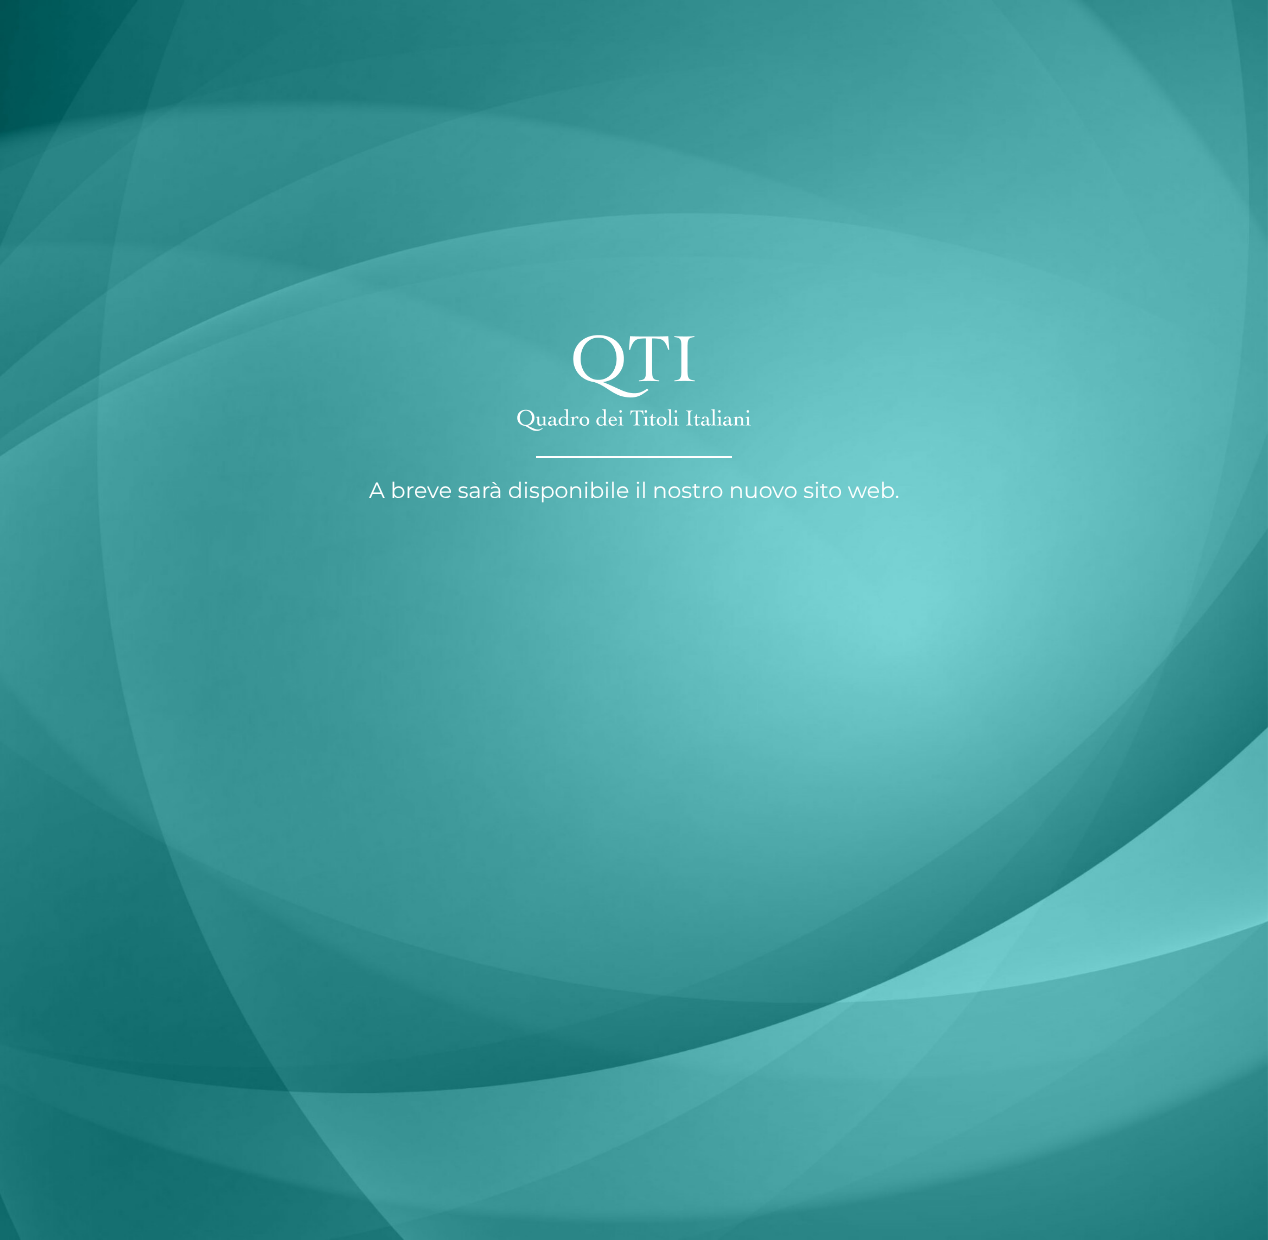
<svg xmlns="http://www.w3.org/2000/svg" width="1268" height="1240">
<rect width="100%" height="100%" fill="#fff"/>
<image x="0" y="0" width="1268" height="1240" href="media/1.png"/>
<image x="517" y="335" width="234" height="96" href="media/2.png"/>
<rect x="536" y="456" width="196" height="2" fill="#fff"/>
<text x="369" y="498" style="font-family:Montserrat;font-size:22px;font-weight:100;fill:#fff">A breve sarà disponibile il nostro nuovo sito web.</text>
</svg>
